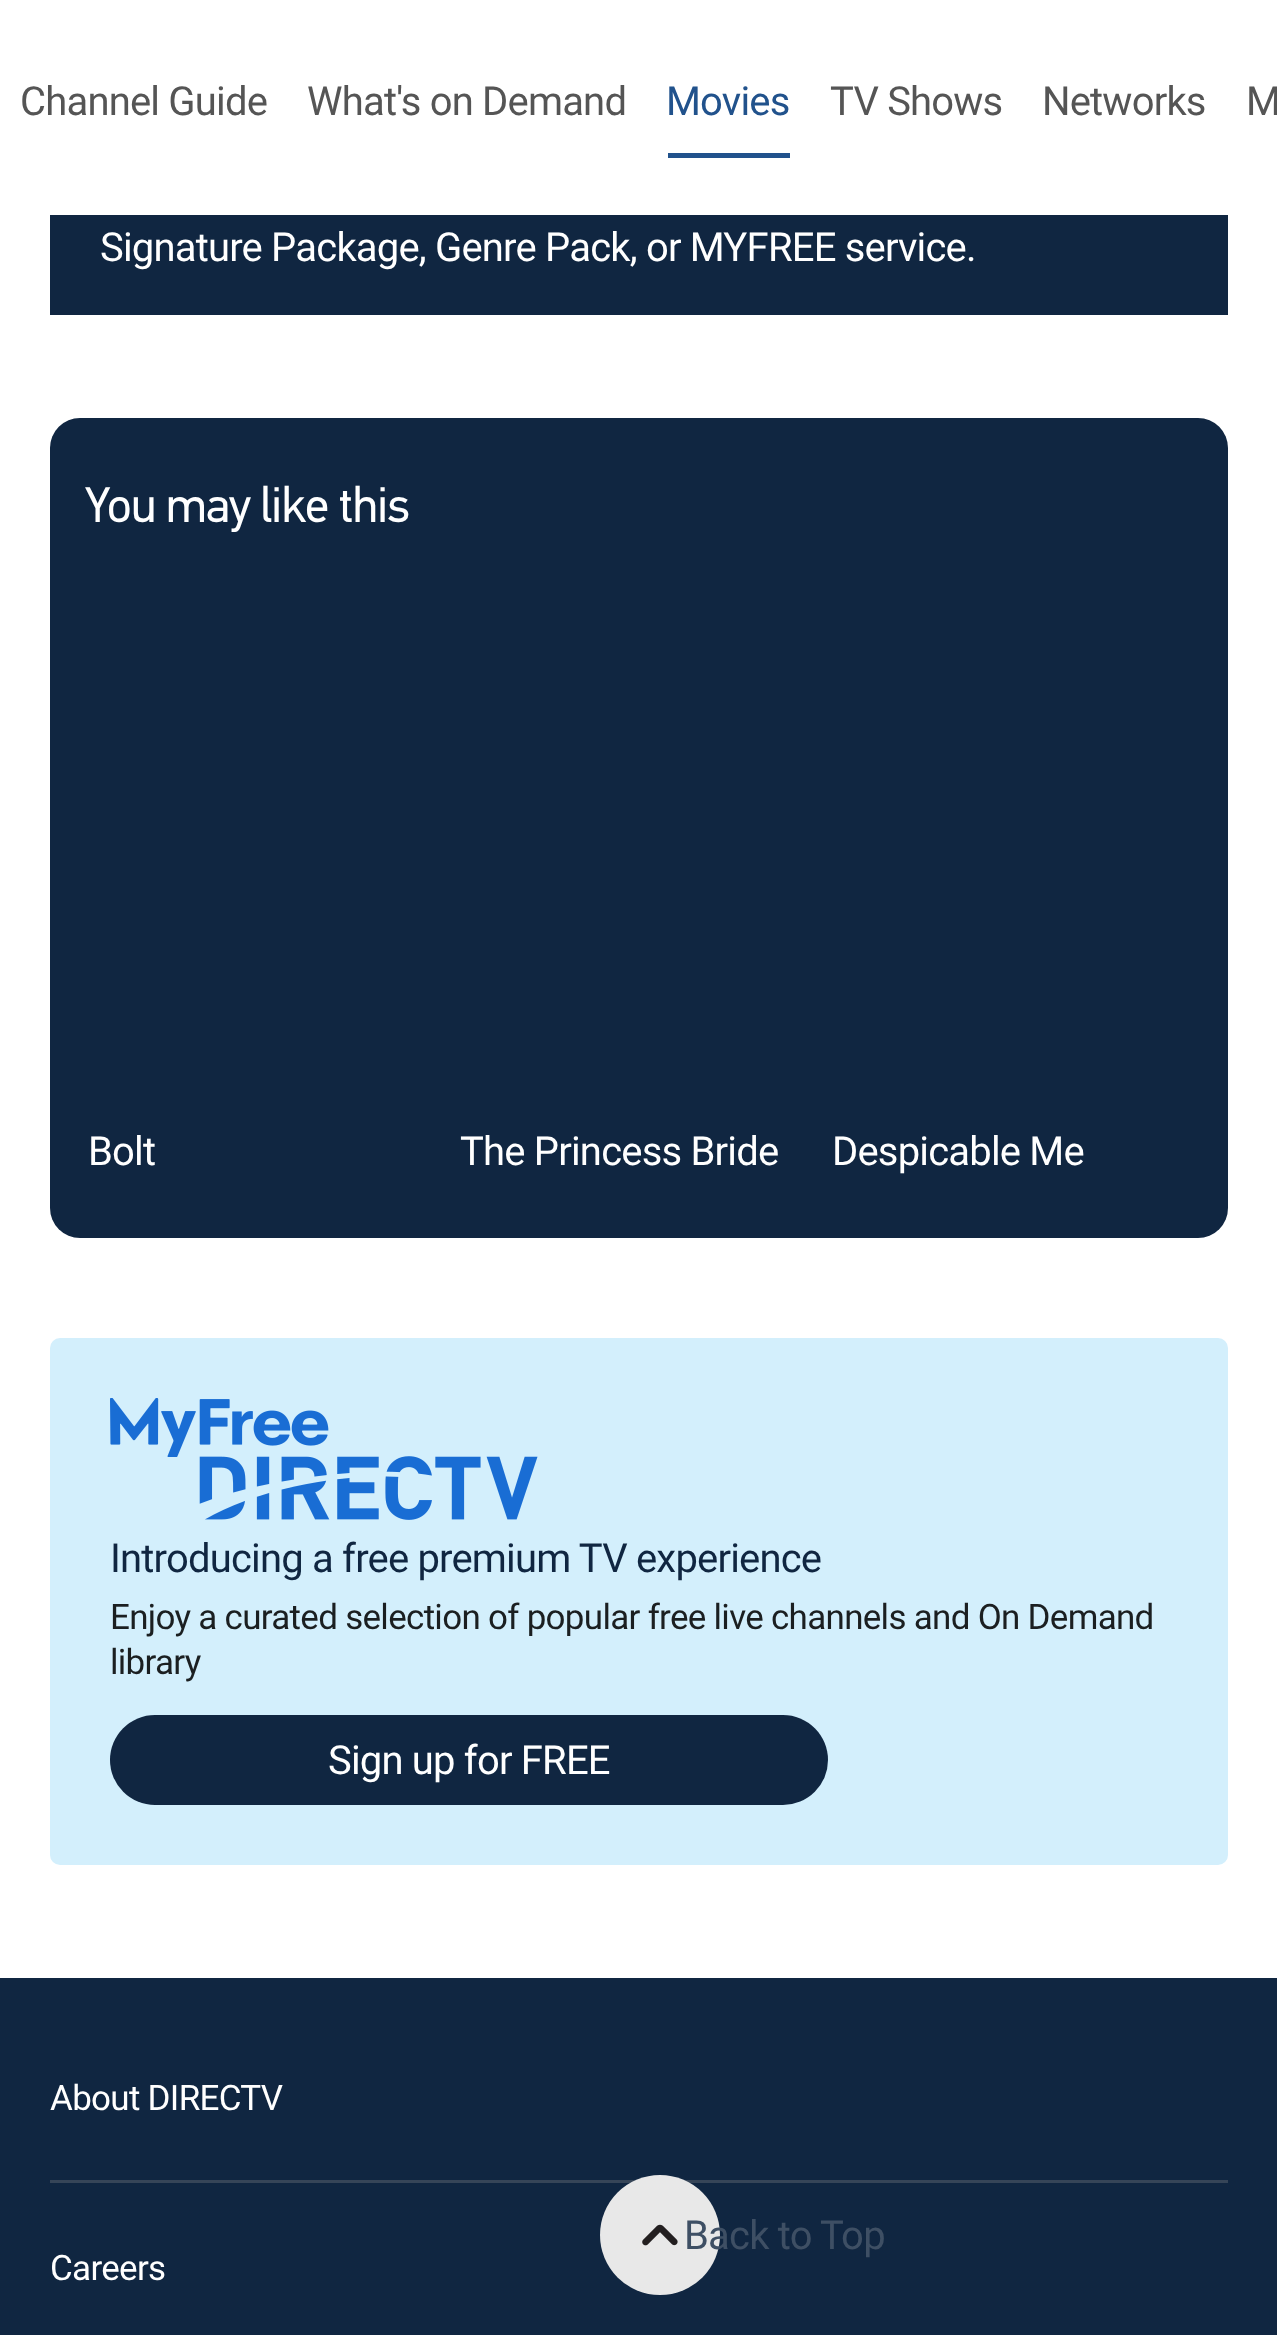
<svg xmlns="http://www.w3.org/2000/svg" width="1277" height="2335">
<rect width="100%" height="100%" fill="#fff"/>
<text x="20" y="115" style="font-family:Roboto;font-size:40px;letter-spacing:-0.8px;fill:#555">Channel Guide</text>
<text x="307" y="115" style="font-family:Roboto;font-size:40px;letter-spacing:-0.8px;fill:#555">What's on Demand</text>
<text x="666" y="115" style="font-family:Roboto;font-size:40px;letter-spacing:-0.8px;fill:#21528c">Movies</text>
<rect x="668" y="153" width="122" height="5" fill="#21528c"/>
<text x="830" y="115" style="font-family:Roboto;font-size:40px;letter-spacing:-0.8px;fill:#555">TV Shows</text>
<text x="1042" y="115" style="font-family:Roboto;font-size:40px;letter-spacing:-0.8px;fill:#555">Networks</text>
<text x="1246" y="115" style="font-family:Roboto;font-size:40px;letter-spacing:-0.8px;fill:#555">M</text>
<rect x="50" y="215" width="1178" height="100" fill="#102641"/>
<text x="100" y="261" style="font-family:Roboto;font-size:40px;letter-spacing:-0.8px;fill:#fff">Signature Package, Genre Pack, or MYFREE service.</text>
<rect x="50" y="418" width="1178" height="820" rx="30" fill="#102641"/>
<text x="85" y="522" style="font-family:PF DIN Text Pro;font-size:50px;letter-spacing:-1px;fill:#fff">You may like this</text>
<text x="88" y="1165" style="font-family:Roboto;font-size:40px;letter-spacing:-0.8px;fill:#fff">Bolt</text>
<text x="460" y="1165" style="font-family:Roboto;font-size:40px;letter-spacing:-0.8px;fill:#fff">The Princess Bride</text>
<text x="832" y="1165" style="font-family:Roboto;font-size:40px;letter-spacing:-0.8px;fill:#fff">Despicable Me</text>
<rect x="50" y="1338" width="1178" height="527" rx="10" fill="#d3effc"/>
<image x="110" y="1398" width="428" height="122" href="media/1.png"/>
<text x="110" y="1572" style="font-family:Roboto;font-size:40px;letter-spacing:-0.8px;fill:#102641">Introducing a free premium TV experience</text>
<text x="110" y="1629" style="font-family:Roboto;font-size:35px;letter-spacing:-0.7px;fill:#1b1f21">Enjoy a curated selection of popular free live channels and On Demand</text>
<text x="110" y="1674" style="font-family:Roboto;font-size:35px;letter-spacing:-0.7px;fill:#1b1f21">library</text>
<rect x="110" y="1715" width="718" height="90" rx="45" fill="#102641"/>
<text x="328" y="1774" style="font-family:Roboto;font-size:40px;letter-spacing:-0.8px;fill:#fff">Sign up for FREE</text>
<rect y="1978" width="1277" height="357" fill="#102641"/>
<rect x="50" y="2180" width="1178" height="3" fill="#364558"/>
<circle cx="660" cy="2235" r="60" fill="#e8e8e8"/>
<image x="642" y="2224" width="36" height="22" href="media/2.png"/>
<text x="684" y="2249" style="font-family:Roboto;font-size:40px;letter-spacing:-0.8px;fill:#3e4f64">Back to Top</text>
<text x="50" y="2110" style="font-family:Roboto;font-size:35px;letter-spacing:-0.7px;fill:#fff">About DIRECTV</text>
<text x="50" y="2280" style="font-family:Roboto;font-size:35px;letter-spacing:-0.7px;fill:#fff">Careers</text>
</svg>
